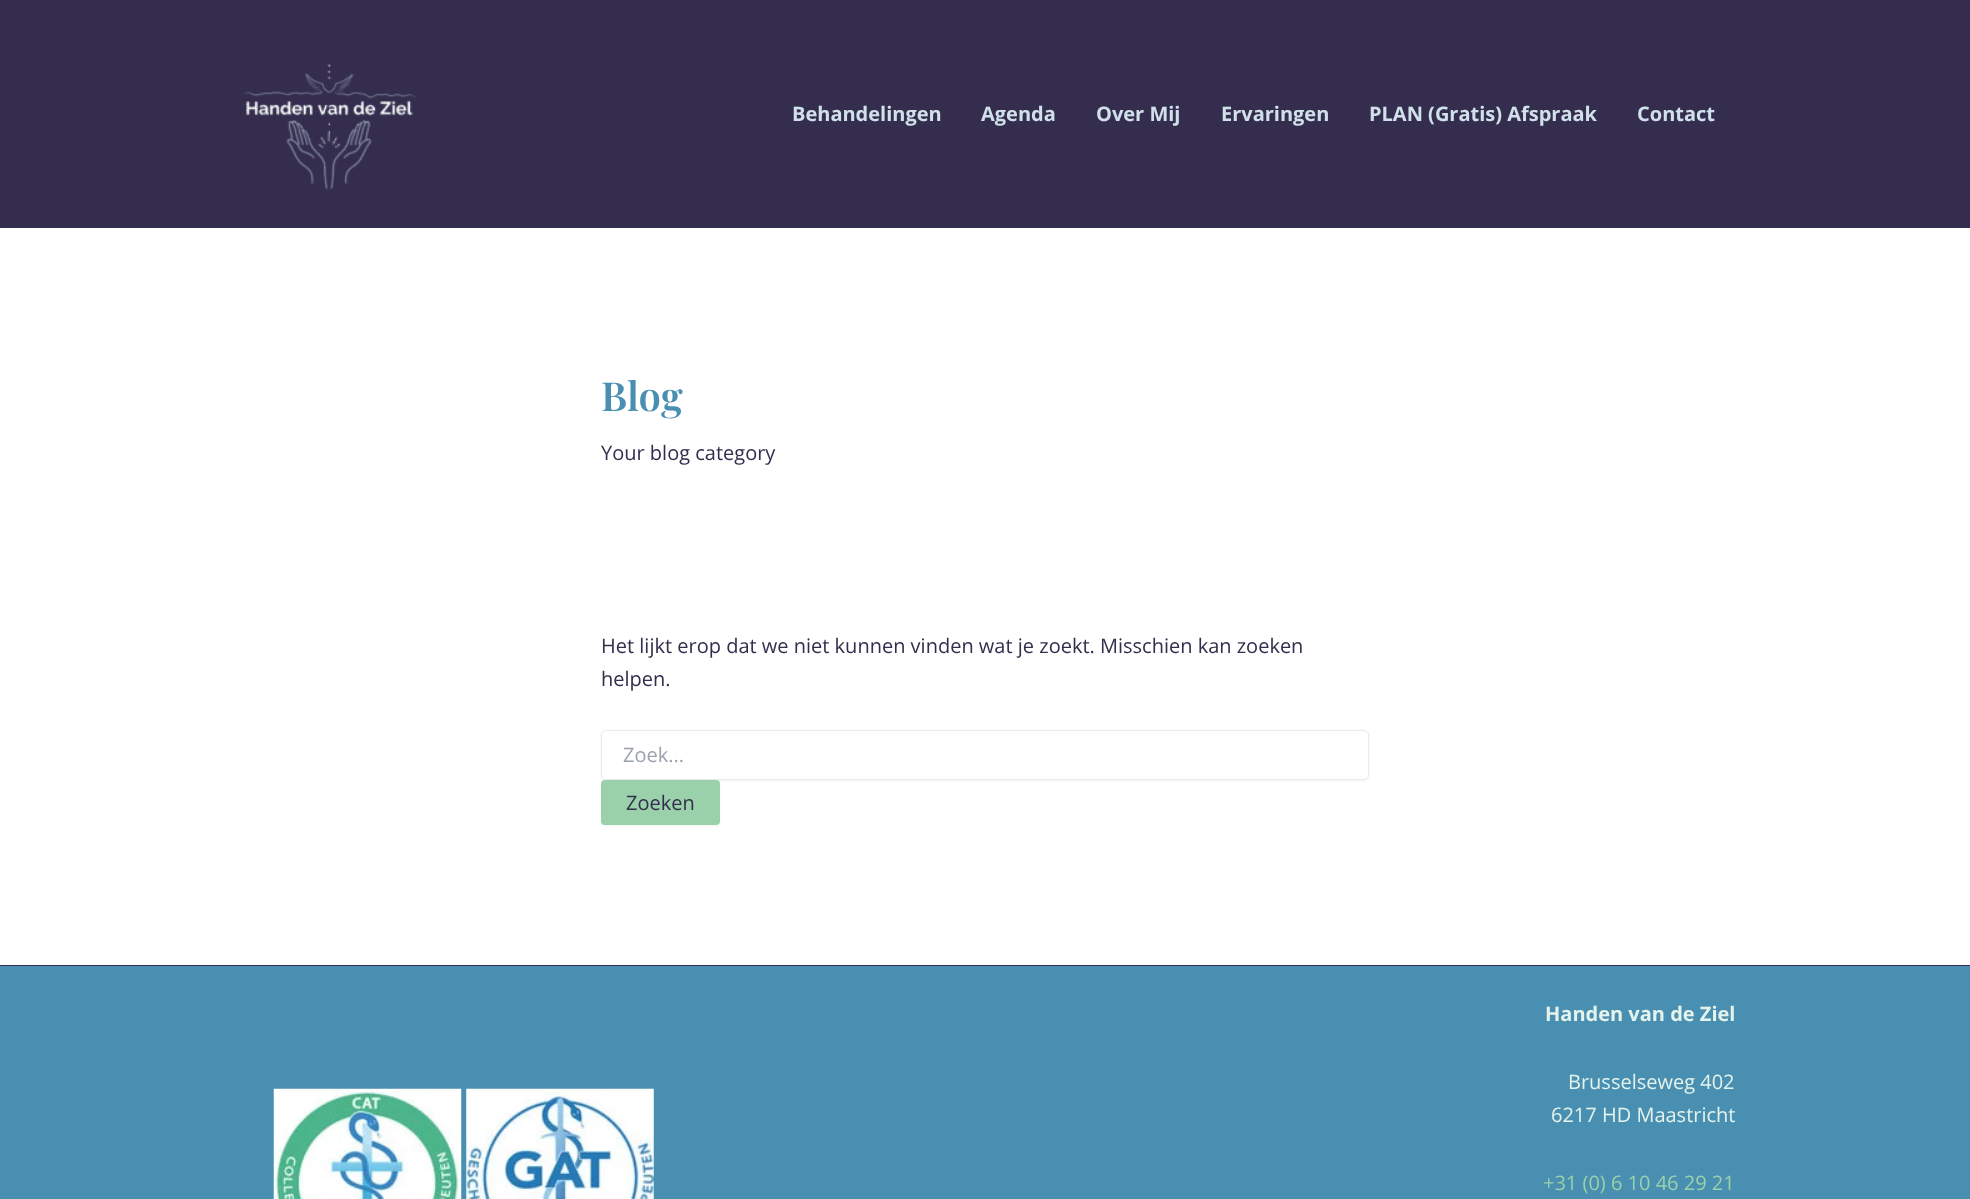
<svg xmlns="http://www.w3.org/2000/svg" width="1970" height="1199">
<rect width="100%" height="100%" fill="#fff"/>
<rect width="1970" height="228" fill="#352d4d"/>
<image x="244" y="63" width="173" height="126" href="media/1.png"/>
<text x="792" y="121" style="font-family:Open Sans;font-size:20px;font-weight:bold;fill:#d0e1eb">Behandelingen</text>
<text x="981" y="121" style="font-family:Open Sans;font-size:20px;font-weight:bold;fill:#d0e1eb">Agenda</text>
<text x="1096" y="121" style="font-family:Open Sans;font-size:20px;font-weight:bold;fill:#d0e1eb">Over Mij</text>
<text x="1221" y="121" style="font-family:Open Sans;font-size:20px;font-weight:bold;fill:#d0e1eb">Ervaringen</text>
<text x="1369" y="121" style="font-family:Open Sans;font-size:20px;font-weight:bold;fill:#d0e1eb">PLAN (Gratis) Afspraak</text>
<text x="1637" y="121" style="font-family:Open Sans;font-size:20px;font-weight:bold;fill:#d0e1eb">Contact</text>
<text x="601" y="411" style="font-family:Playfair Display;font-size:40px;font-weight:600;fill:#488fb1">Blog</text>
<text x="601" y="460" style="font-family:Open Sans;font-size:20px;fill:#352d4d">Your blog category</text>
<text x="601" y="653" style="font-family:Open Sans;font-size:20px;fill:#352d4d">Het lijkt erop dat we niet kunnen vinden wat je zoekt. Misschien kan zoeken</text>
<text x="601" y="686" style="font-family:Open Sans;font-size:20px;fill:#352d4d">helpen.</text>
<rect x="601" y="731" width="768" height="50" rx="5" fill="#0000000d" filter="blur(1px)"/>
<rect x="601.5" y="730.5" width="767" height="49" rx="4.5" fill="#fff" stroke="#e6ebf1"/>
<text x="623" y="762" style="font-family:Open Sans;font-size:20px;fill:#9ca3af">Zoek...</text>
<rect x="601" y="781" width="119" height="45" rx="4" fill="#0000000d" filter="blur(1px)"/>
<rect x="601" y="780" width="119" height="45" rx="4" fill="#9ad1aa"/>
<text x="626" y="810" style="font-family:Open Sans;font-size:20px;fill:#352d4d">Zoeken</text>
<rect y="965" width="1970" height="1" fill="#352d4d"/>
<rect y="966" width="1970" height="233" fill="#488fb1"/>
<image x="273" y="1088" width="189" height="111" href="media/2.png"/>
<image x="466" y="1088" width="188" height="111" href="media/3.png"/>
<text x="1545" y="1021" style="font-family:Open Sans;font-size:20px;font-weight:bold;fill:#e4f3eb">Handen van de Ziel</text>
<text x="1568" y="1089" style="font-family:Open Sans;font-size:20px;fill:#e4f3eb">Brusselseweg 402</text>
<text x="1551" y="1122" style="font-family:Open Sans;font-size:20px;fill:#e4f3eb">6217 HD Maastricht</text>
<text x="1543" y="1190" style="font-family:Open Sans;font-size:20px;fill:#9ad1aa">+31 (0) 6 10 46 29 21</text>
</svg>
